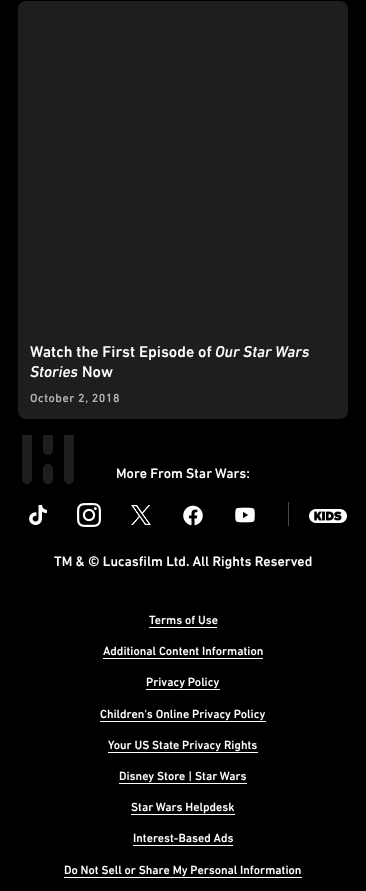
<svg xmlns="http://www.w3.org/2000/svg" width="366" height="891">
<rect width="100%" height="100%" fill="#000"/>
<rect x="18" y="1" width="330" height="418" rx="8" fill="#1d1e1f"/>
<text x="30" y="357" style="font-family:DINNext;font-size:16px;font-weight:500;fill:#fff">Watch the First Episode of</text>
<text x="215" y="357" style="font-family:DINNext;font-size:16px;font-weight:500;font-style:italic;fill:#fff">Our Star Wars</text>
<text x="30" y="377" style="font-family:DINNext;font-size:16px;font-weight:500;font-style:italic;fill:#fff">Stories</text>
<text x="82" y="377" style="font-family:DINNext;font-size:16px;font-weight:500;fill:#fff">Now</text>
<text x="30" y="402" style="font-family:DINNext;font-size:12px;font-weight:500;letter-spacing:0.5px;fill:#b5b7b7">October 2, 2018</text>
<image x="22" y="435" width="52" height="49" href="media/1.png"/>
<text x="116" y="478" style="font-family:DINNext;font-size:14px;font-weight:500;fill:#fff">More From Star Wars:</text>
<image x="29" y="505" width="18" height="20" href="media/2.png"/>
<image x="77" y="503" width="24" height="24" href="media/3.png"/>
<image x="131" y="505" width="20" height="20" href="media/4.png"/>
<image x="183" y="505" width="20" height="21" href="media/5.png"/>
<image x="235" y="507" width="20" height="16" href="media/6.png"/>
<image x="309" y="509" width="38" height="14" href="media/7.png"/>
<rect x="288" y="502" width="1" height="24" fill="#48494a"/>
<text x="149" y="624" style="font-family:DINNext;font-size:12px;font-weight:500;fill:#fff">Terms of Use</text>
<rect x="149" y="627" width="68" height="1" fill="#fff"/>
<text x="103" y="655" style="font-family:DINNext;font-size:12px;font-weight:500;fill:#fff">Additional Content Information</text>
<rect x="103" y="658" width="160" height="1" fill="#fff"/>
<text x="146" y="686" style="font-family:DINNext;font-size:12px;font-weight:500;fill:#fff">Privacy Policy</text>
<rect x="146" y="689" width="74" height="1" fill="#fff"/>
<text x="100" y="718" style="font-family:DINNext;font-size:12px;font-weight:500;fill:#fff">Children's Online Privacy Policy</text>
<rect x="100" y="721" width="166" height="1" fill="#fff"/>
<text x="108" y="749" style="font-family:DINNext;font-size:12px;font-weight:500;fill:#fff">Your US State Privacy Rights</text>
<rect x="108" y="752" width="150" height="1" fill="#fff"/>
<text x="119" y="780" style="font-family:DINNext;font-size:12px;font-weight:500;fill:#fff">Disney Store | Star Wars</text>
<rect x="119" y="783" width="128" height="1" fill="#fff"/>
<text x="131" y="811" style="font-family:DINNext;font-size:12px;font-weight:500;fill:#fff">Star Wars Helpdesk</text>
<rect x="131" y="814" width="104" height="1" fill="#fff"/>
<text x="133" y="842" style="font-family:DINNext;font-size:12px;font-weight:500;fill:#fff">Interest-Based Ads</text>
<rect x="133" y="845" width="100" height="1" fill="#fff"/>
<text x="64" y="874" style="font-family:DINNext;font-size:12px;font-weight:500;fill:#fff">Do Not Sell or Share My Personal Information</text>
<rect x="64" y="877" width="238" height="1" fill="#fff"/>
<text x="54" y="566" style="font-family:DINNext;font-size:14px;font-weight:500;fill:#fff">TM &amp; © Lucasfilm Ltd. All Rights Reserved</text>
</svg>
